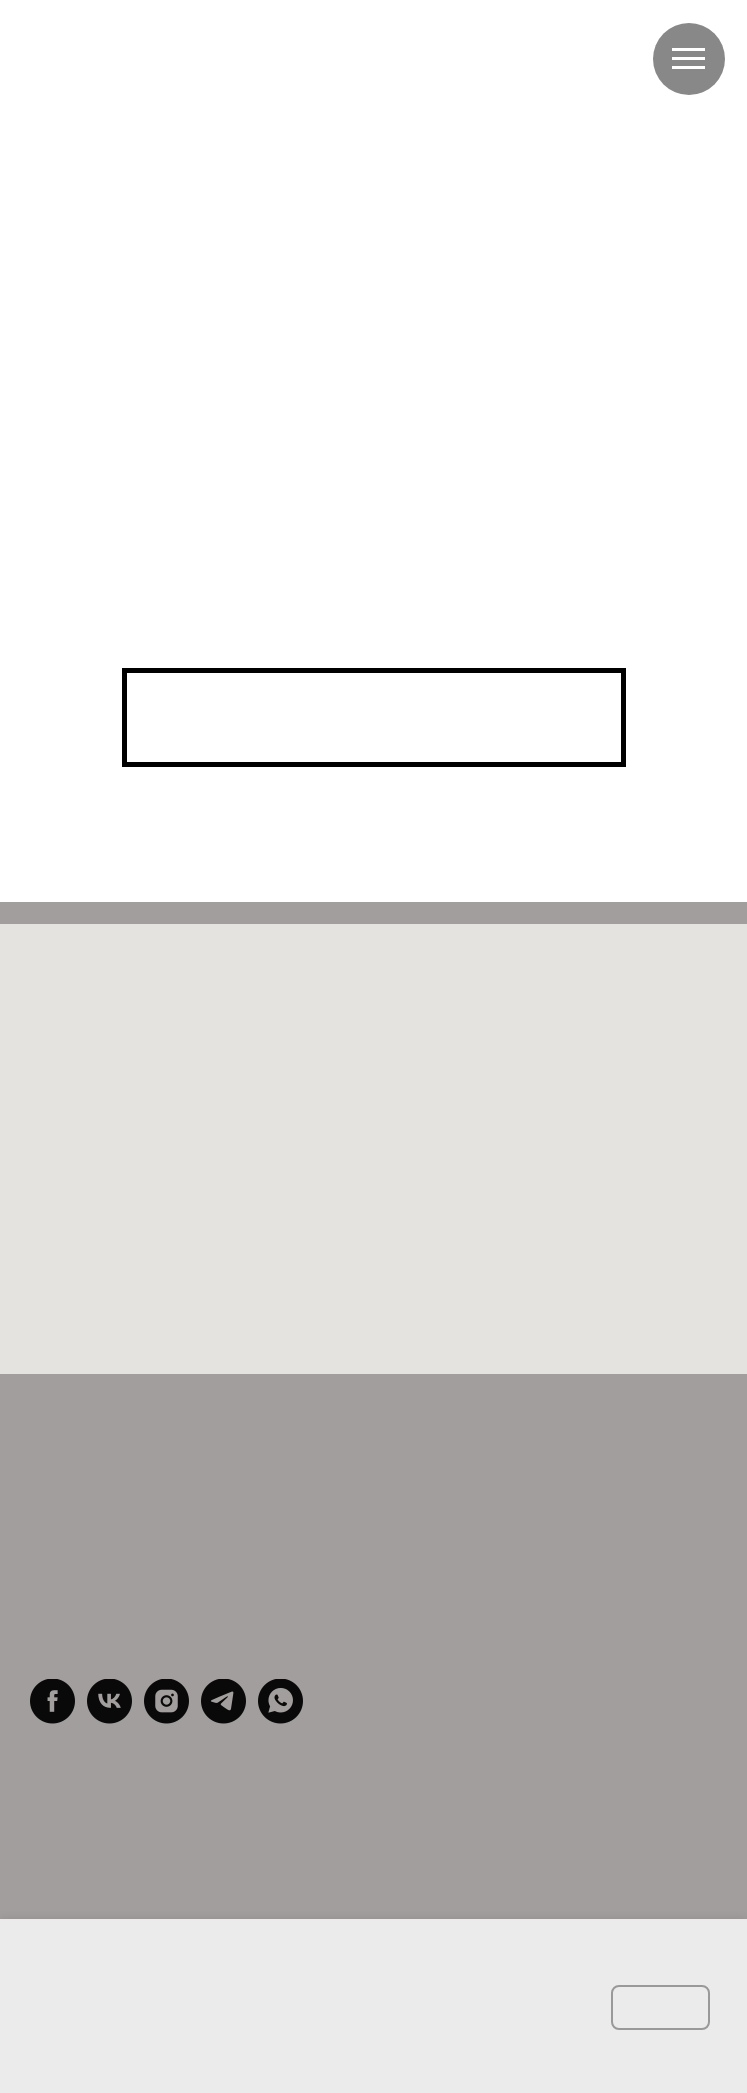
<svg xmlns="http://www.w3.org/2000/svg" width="747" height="2093">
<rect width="100%" height="100%" fill="#fff"/>
<circle cx="689" cy="59" r="36" fill="#888"/>
<rect x="672" y="48" width="33" height="3" fill="#fff"/>
<rect x="672" y="57" width="33" height="3" fill="#fff"/>
<rect x="672" y="66" width="33" height="3" fill="#fff"/>
<rect x="124.5" y="670.5" width="499" height="94" fill="none" stroke="#000" stroke-width="5"/>
<rect y="902" width="747" height="1017" fill="#a39e9e"/>
<rect y="924" width="747" height="450" fill="#e5e3df"/>
<image x="30" y="1679" width="45" height="45" href="media/1.png"/>
<image x="87" y="1679" width="45" height="45" href="media/2.png"/>
<image x="144" y="1679" width="45" height="45" href="media/3.png"/>
<image x="201" y="1679" width="45" height="45" href="media/4.png"/>
<image x="258" y="1679" width="45" height="45" href="media/5.png"/>
<rect y="1919" width="747" height="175" fill="#0000001a" filter="blur(4px)"/>
<rect y="1919" width="747" height="174" fill="#ebebeb"/>
<rect x="612" y="1986" width="97" height="43" rx="7" fill="none" stroke="#999" stroke-width="2"/>
</svg>
